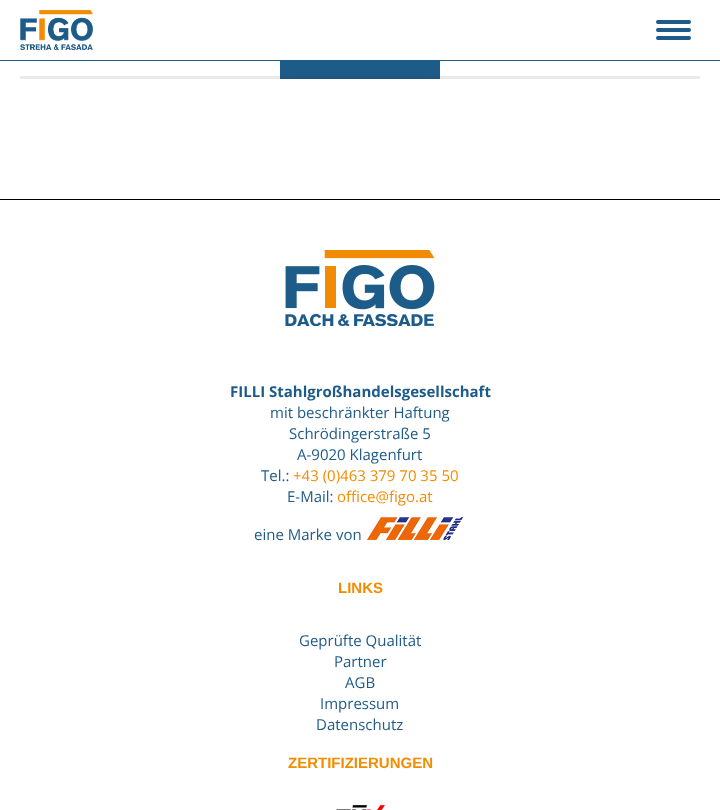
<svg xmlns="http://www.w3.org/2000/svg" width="720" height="810">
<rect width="100%" height="100%" fill="#fff"/>
<rect x="20" y="76" width="680" height="3" fill="#e9e9e9"/>
<rect y="60" width="720" height="1" fill="#1d5b89"/>
<image x="20" y="10" width="73" height="40" href="media/1.png"/>
<rect x="656" y="20" width="35" height="4" rx="2" fill="#1d5b89"/>
<rect x="656" y="28" width="35" height="4" rx="2" fill="#1d5b89"/>
<rect x="656" y="36" width="35" height="4" rx="2" fill="#1d5b89"/>
<rect x="280" y="61" width="160" height="15" fill="#1d5b89"/>
<rect x="280" y="76" width="160" height="3" fill="#1f5780"/>
<rect y="199" width="720" height="1" fill="#000"/>
<image x="285" y="250" width="150" height="76" href="media/2.png"/>
<text x="230" y="397" style="font-family:Open Sans;font-size:15px;font-weight:bold;fill:#1d5b89">FILLI Stahlgroßhandelsgesellschaft</text>
<text x="270" y="418" style="font-family:Open Sans;font-size:15px;fill:#1d5b89">mit beschränkter Haftung</text>
<text x="289" y="439" style="font-family:Open Sans;font-size:15px;fill:#1d5b89">Schrödingerstraße 5</text>
<text x="297" y="460" style="font-family:Open Sans;font-size:15px;fill:#1d5b89">A-9020 Klagenfurt</text>
<text x="261" y="481" style="font-family:Open Sans;font-size:15px;fill:#1d5b89">Tel.:</text>
<text x="293" y="481" style="font-family:Open Sans;font-size:15px;fill:#f28c00">+43 (0)463 379 70 35 50</text>
<text x="287" y="502" style="font-family:Open Sans;font-size:15px;fill:#1d5b89">E-Mail:</text>
<text x="337" y="502" style="font-family:Open Sans;font-size:15px;fill:#f28c00">office@figo.at</text>
<text x="254" y="540" style="font-family:Open Sans;font-size:15px;fill:#1d5b89">eine Marke von</text>
<image x="367" y="517" width="97" height="23" href="media/3.png"/>
<text x="338" y="593" style="font-family:Liberation Sans;font-size:15px;font-weight:bold;fill:#f28c00">LINKS</text>
<text x="299" y="646" style="font-family:Open Sans;font-size:15px;fill:#1d5b89">Geprüfte Qualität</text>
<text x="334" y="667" style="font-family:Open Sans;font-size:15px;fill:#1d5b89">Partner</text>
<text x="345" y="688" style="font-family:Open Sans;font-size:15px;fill:#1d5b89">AGB</text>
<text x="320" y="709" style="font-family:Open Sans;font-size:15px;fill:#1d5b89">Impressum</text>
<text x="316" y="730" style="font-family:Open Sans;font-size:15px;fill:#1d5b89">Datenschutz</text>
<text x="288" y="768" style="font-family:Liberation Sans;font-size:15px;font-weight:bold;fill:#f28c00">ZERTIFIZIERUNGEN</text>
<image x="336" y="805" width="49" height="5" href="media/4.png"/>
</svg>
